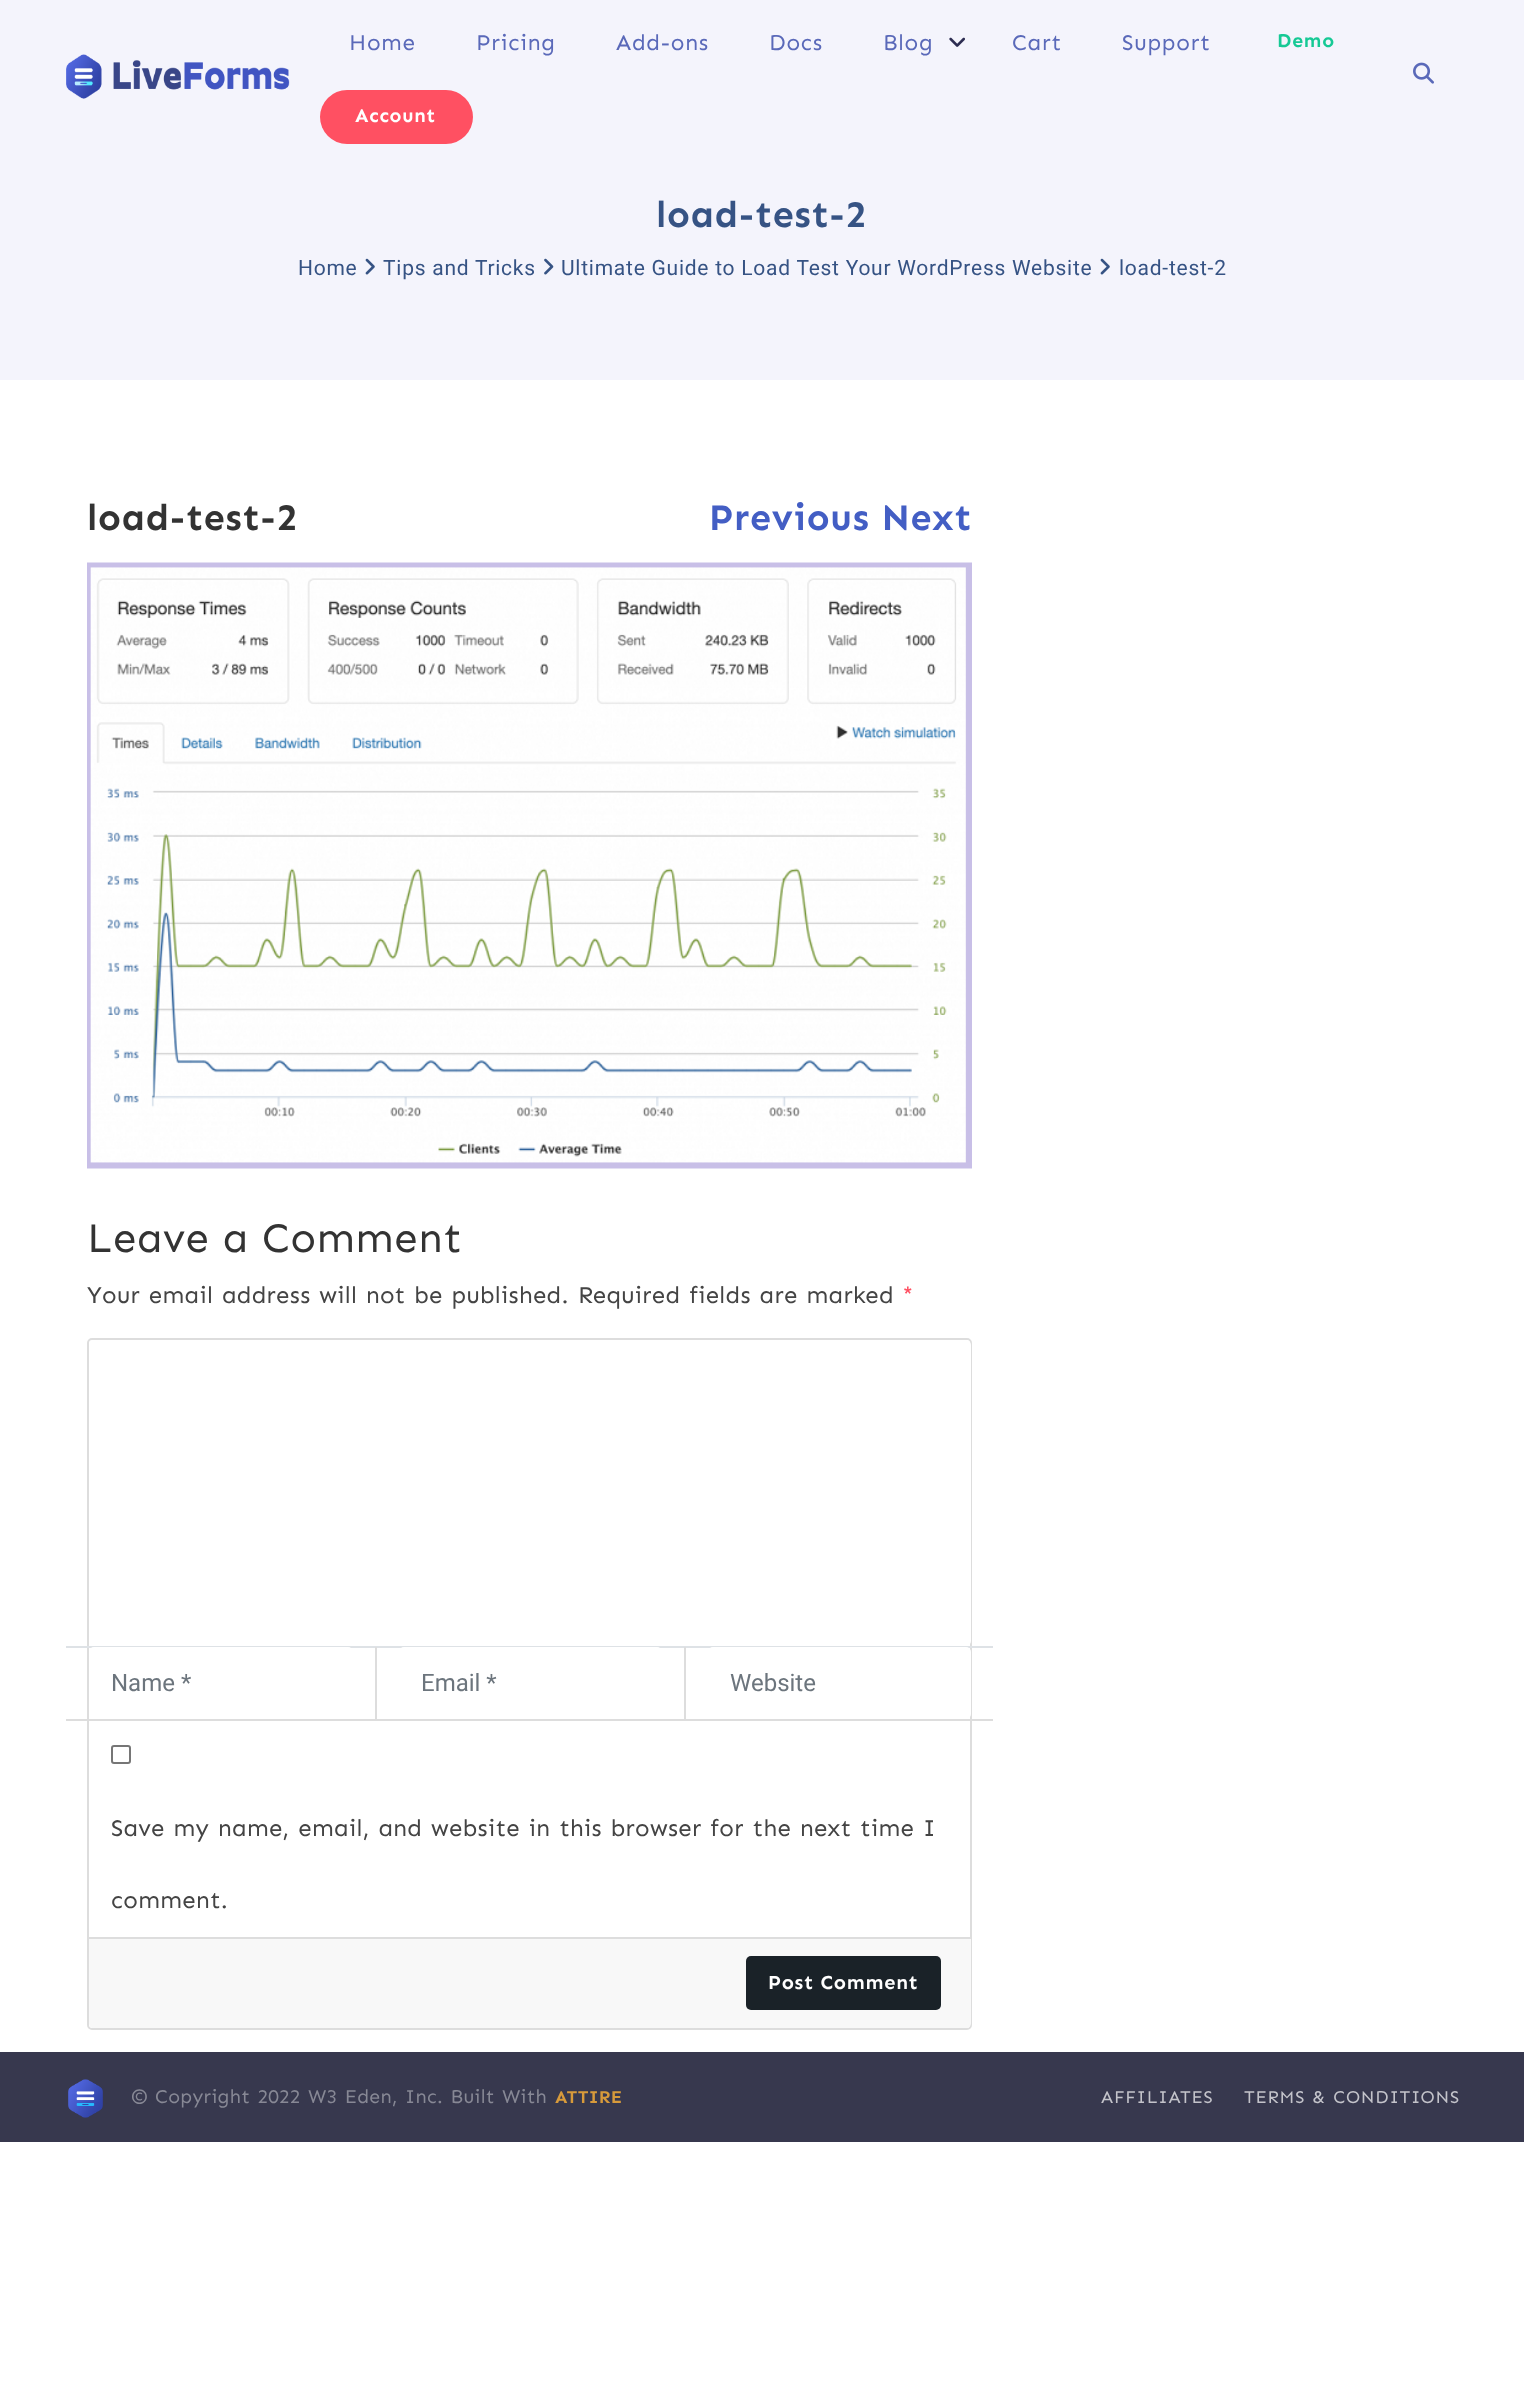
<svg xmlns="http://www.w3.org/2000/svg" width="1524" height="2404">
<rect width="100%" height="100%" fill="#fff"/>
<rect width="1524" height="380" fill="#f4f4fc"/>
<image x="66" y="54" width="224" height="45" href="media/1.png"/>
<text x="349" y="50" style="font-family:Sen;font-size:22.5px;letter-spacing:0.75px;fill:#5a69b9">Home</text>
<text x="476" y="50" style="font-family:Sen;font-size:22.5px;letter-spacing:0.75px;fill:#5a69b9">Pricing</text>
<text x="616" y="50" style="font-family:Sen;font-size:22.5px;letter-spacing:0.75px;fill:#5a69b9">Add-ons</text>
<text x="769" y="50" style="font-family:Sen;font-size:22.5px;letter-spacing:0.75px;fill:#5a69b9">Docs</text>
<text x="883" y="50" style="font-family:Sen;font-size:22.5px;letter-spacing:0.75px;fill:#5a69b9">Blog</text>
<image x="949" y="37" width="16" height="10" href="media/2.png"/>
<text x="1012" y="50" style="font-family:Sen;font-size:22.5px;letter-spacing:0.75px;fill:#5a69b9">Cart</text>
<text x="1122" y="50" style="font-family:Sen;font-size:22.5px;letter-spacing:0.75px;fill:#5a69b9">Support</text>
<text x="1277" y="47" style="font-family:Sen;font-size:19.5px;font-weight:bold;letter-spacing:0.75px;fill:#16c995">Demo</text>
<rect x="320" y="90" width="153" height="54" rx="27" fill="#ff5062"/>
<text x="355" y="122" style="font-family:Sen;font-size:19.5px;font-weight:bold;letter-spacing:0.75px;fill:#fff">Account</text>
<image x="1413" y="62" width="21" height="22" href="media/3.png"/>
<text x="656" y="227" style="font-family:Sen;font-size:37.5px;font-weight:bold;letter-spacing:0.75px;fill:#365384">load-test-2</text>
<text x="298" y="275" style="font-family:Roboto;font-size:21px;letter-spacing:0.75px;fill:#365384">Home</text>
<image x="365" y="258" width="10" height="17" href="media/4.png"/>
<text x="383" y="275" style="font-family:Roboto;font-size:21px;letter-spacing:0.75px;fill:#365384">Tips and Tricks</text>
<image x="544" y="258" width="10" height="17" href="media/5.png"/>
<text x="561" y="275" style="font-family:Roboto;font-size:21px;letter-spacing:0.75px;fill:#365384">Ultimate Guide to Load Test Your WordPress Website</text>
<image x="1100" y="258" width="10" height="17" href="media/4.png"/>
<text x="1119" y="275" style="font-family:Roboto;font-size:21px;letter-spacing:0.75px;fill:#365384">load-test-2</text>
<text x="87" y="530" style="font-family:Sen;font-size:37.5px;font-weight:bold;letter-spacing:0.75px;fill:#333">load-test-2</text>
<text x="709" y="530" style="font-family:Sen;font-size:37.5px;font-weight:bold;letter-spacing:0.75px;fill:#435ec4">Previous Next</text>
<image x="87" y="562" width="885" height="607" href="media/6.png"/>
<text x="87" y="1252" style="font-family:Sen;font-size:42px;letter-spacing:0.75px;fill:#333">Leave a Comment</text>
<text x="87" y="1303" word-spacing="1.5" style="font-family:Sen;font-size:24px;letter-spacing:0.3px;fill:#444">Your email address will not be published.</text>
<text x="578" y="1303" word-spacing="1.5" style="font-family:Sen;font-size:24px;letter-spacing:0.3px;fill:#444">Required fields are marked</text>
<text x="902" y="1303" style="font-family:Sen;font-size:24px;letter-spacing:0.3px;fill:#ff5062">*</text>
<rect x="88" y="1339" width="883" height="690" rx="4" fill="none" stroke="#ddd" stroke-width="2"/>
<rect x="66" y="1646" width="927" height="2" fill="#dee2e6"/>
<rect x="89" y="1340" width="882" height="306" rx="5" fill="#fff"/>
<rect x="89" y="1647" width="264" height="72" rx="5" fill="#fff"/>
<text x="111" y="1691" style="font-family:Roboto;font-size:24px;fill:#6c757d">Name *</text>
<rect x="375" y="1647" width="2" height="72" fill="#ddd"/>
<rect x="399" y="1647" width="263" height="72" rx="5" fill="#fff"/>
<text x="421" y="1691" style="font-family:Roboto;font-size:24px;fill:#6c757d">Email *</text>
<rect x="684" y="1647" width="2" height="72" fill="#ddd"/>
<rect x="708" y="1647" width="263" height="72" rx="5" fill="#fff"/>
<text x="730" y="1691" style="font-family:Roboto;font-size:24px;fill:#6c757d">Website</text>
<rect x="66" y="1719" width="927" height="2" fill="#ddd"/>
<rect x="112" y="1746" width="18" height="17" rx="2" fill="none" stroke="#767676" stroke-width="2"/>
<text x="111" y="1836" word-spacing="1.5" style="font-family:Sen;font-size:24px;letter-spacing:0.3px;fill:#444">Save my name, email, and website in this browser for the next time I</text>
<text x="111" y="1908" style="font-family:Sen;font-size:24px;letter-spacing:0.3px;fill:#444">comment.</text>
<path d="M89 1937h882v86c0 3-2 5-5 5h-872c-3 0-5-2-5-5z" fill="#f8f8f8"/>
<rect x="89" y="1937" width="882" height="2" fill="#ddd"/>
<rect x="746" y="1956" width="195" height="54" rx="5" fill="#1a2228"/>
<text x="768" y="1989" style="font-family:Sen;font-size:20px;font-weight:bold;letter-spacing:0.75px;fill:#fff">Post Comment</text>
<rect y="2052" width="1524" height="90" fill="#37384e"/>
<image x="68" y="2079" width="35" height="39" href="media/7.png"/>
<text x="131" y="2103" style="font-family:Sen;font-size:19.5px;letter-spacing:0.3px;fill:#878895">©</text>
<text x="155" y="2103" word-spacing="1.5" style="font-family:Sen;font-size:19.5px;letter-spacing:0.3px;fill:#878895">Copyright 2022 W3 Eden, Inc. Built With</text>
<text x="555" y="2103" style="font-family:Sen;font-size:18px;font-weight:bold;letter-spacing:0.3px;fill:#d79a3b">ATTIRE</text>
<text x="1101" y="2103" style="font-family:Sen;font-size:18px;letter-spacing:0.75px;fill:#c3c3ca">AFFILIATES</text>
<text x="1244" y="2103" word-spacing="1.5" style="font-family:Sen;font-size:18px;letter-spacing:0.75px;fill:#c3c3ca">TERMS &amp; CONDITIONS</text>
</svg>
